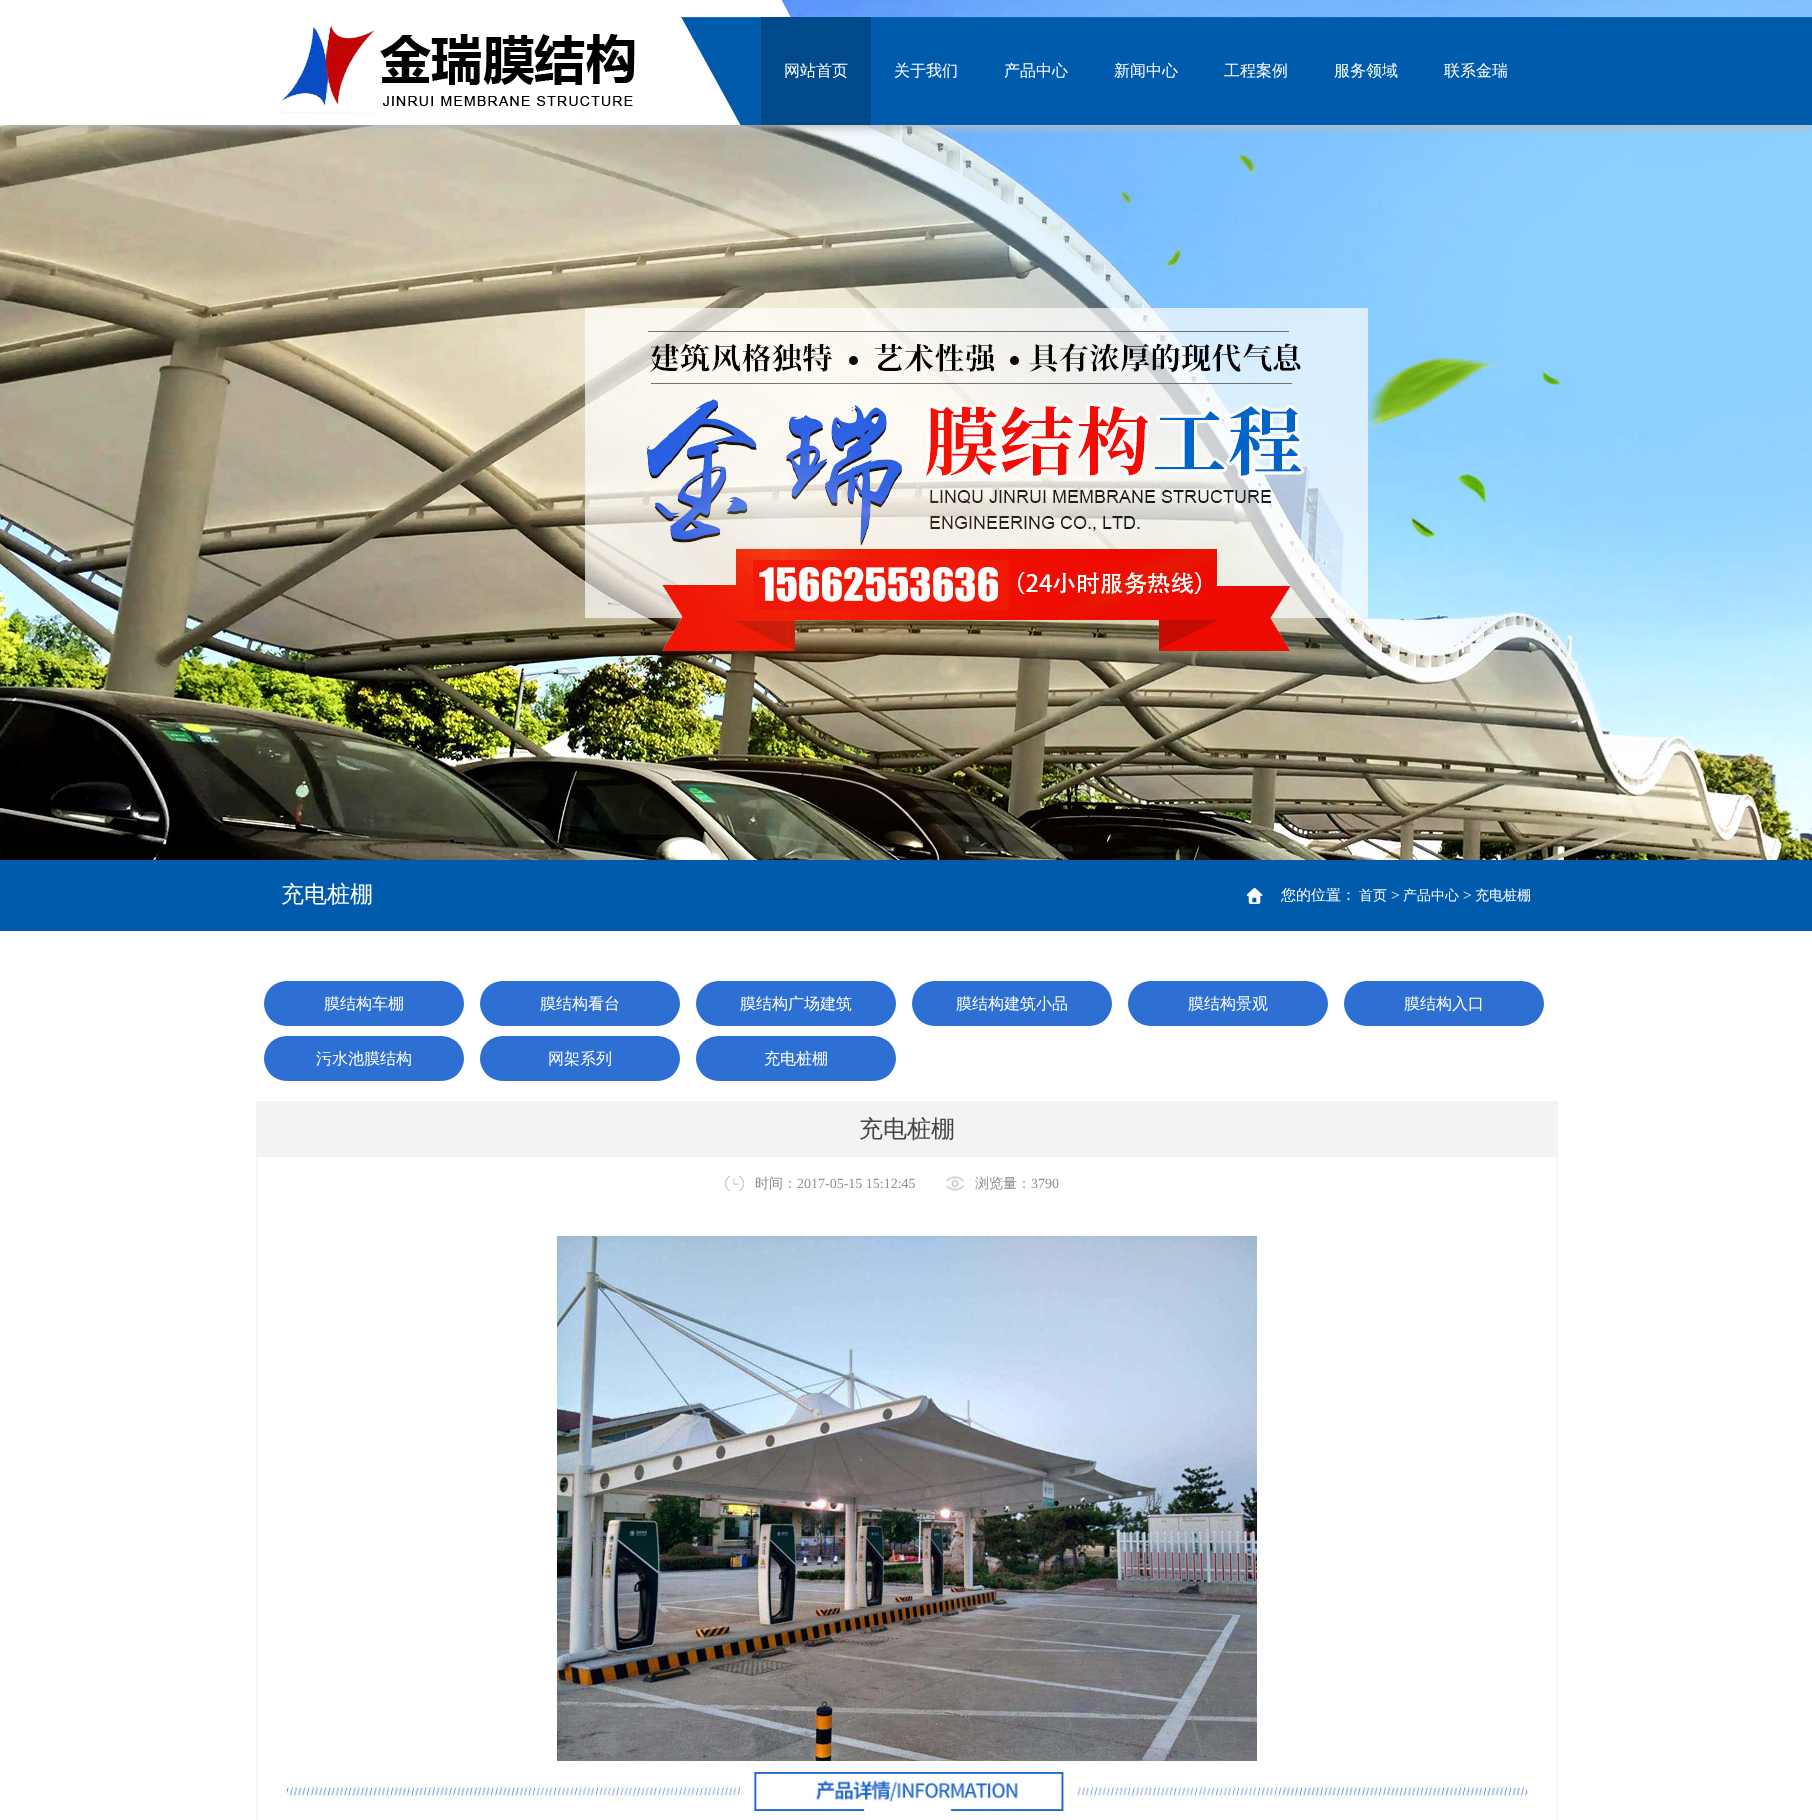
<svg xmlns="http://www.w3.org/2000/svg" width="1812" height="1820">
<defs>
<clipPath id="clip1"><rect x="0" y="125" width="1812" height="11"/></clipPath>
</defs>
<rect width="100%" height="100%" fill="#fff"/>
<image x="0" y="0" width="1812" height="860" href="media/1.png"/>
<g clip-path="url(#clip1)">
<rect y="3" width="1812" height="125" fill="#bbb" filter="blur(4px)"/>
</g>
<image x="0" y="0" width="1812" height="125" href="media/2.png"/>
<image x="281" y="24" width="354" height="89" href="media/3.png"/>
<rect x="761" y="17" width="110" height="108" fill="#004a8b"/>
<text x="784" y="76" style="font-family:WenQuanYi Zen Hei;font-size:16px;font-weight:500;fill:#fff">网站首页</text>
<text x="894" y="76" style="font-family:WenQuanYi Zen Hei;font-size:16px;font-weight:500;fill:#fff">关于我们</text>
<text x="1004" y="76" style="font-family:WenQuanYi Zen Hei;font-size:16px;font-weight:500;fill:#fff">产品中心</text>
<text x="1114" y="76" style="font-family:WenQuanYi Zen Hei;font-size:16px;font-weight:500;fill:#fff">新闻中心</text>
<text x="1224" y="76" style="font-family:WenQuanYi Zen Hei;font-size:16px;font-weight:500;fill:#fff">工程案例</text>
<text x="1334" y="76" style="font-family:WenQuanYi Zen Hei;font-size:16px;font-weight:500;fill:#fff">服务领域</text>
<text x="1444" y="76" style="font-family:WenQuanYi Zen Hei;font-size:16px;font-weight:500;fill:#fff">联系金瑞</text>
<rect y="860" width="1812" height="71" fill="#005bac"/>
<text x="281" y="902" style="font-family:WenQuanYi Zen Hei;font-size:23px;font-weight:500;fill:#fff">充电桩棚</text>
<image x="1246" y="888" width="17" height="16" href="media/4.png"/>
<text x="1281" y="900" style="font-family:WenQuanYi Zen Hei;font-size:15px;font-weight:500;fill:#fff">您的位置：</text>
<text x="1359" y="900" style="font-family:WenQuanYi Zen Hei;font-size:14px;font-weight:500;fill:#fff">首页</text>
<text x="1391" y="900" style="font-family:Liberation Serif;font-size:15px;fill:#fff">&gt;</text>
<text x="1403" y="900" style="font-family:WenQuanYi Zen Hei;font-size:14px;font-weight:500;fill:#fff">产品中心</text>
<text x="1463" y="900" style="font-family:Liberation Serif;font-size:15px;fill:#fff">&gt;</text>
<text x="1475" y="900" style="font-family:WenQuanYi Zen Hei;font-size:14px;font-weight:500;fill:#fff">充电桩棚</text>
<rect x="264" y="981" width="200" height="45" rx="22.5" fill="#2e6fd3"/>
<text x="324" y="1009" style="font-family:WenQuanYi Zen Hei;font-size:16px;font-weight:500;fill:#fff">膜结构车棚</text>
<rect x="480" y="981" width="200" height="45" rx="22.5" fill="#2e6fd3"/>
<text x="540" y="1009" style="font-family:WenQuanYi Zen Hei;font-size:16px;font-weight:500;fill:#fff">膜结构看台</text>
<rect x="696" y="981" width="200" height="45" rx="22.5" fill="#2e6fd3"/>
<text x="740" y="1009" style="font-family:WenQuanYi Zen Hei;font-size:16px;font-weight:500;fill:#fff">膜结构广场建筑</text>
<rect x="912" y="981" width="200" height="45" rx="22.5" fill="#2e6fd3"/>
<text x="956" y="1009" style="font-family:WenQuanYi Zen Hei;font-size:16px;font-weight:500;fill:#fff">膜结构建筑小品</text>
<rect x="1128" y="981" width="200" height="45" rx="22.5" fill="#2e6fd3"/>
<text x="1188" y="1009" style="font-family:WenQuanYi Zen Hei;font-size:16px;font-weight:500;fill:#fff">膜结构景观</text>
<rect x="1344" y="981" width="200" height="45" rx="22.5" fill="#2e6fd3"/>
<text x="1404" y="1009" style="font-family:WenQuanYi Zen Hei;font-size:16px;font-weight:500;fill:#fff">膜结构入口</text>
<rect x="264" y="1036" width="200" height="45" rx="22.5" fill="#2e6fd3"/>
<text x="316" y="1064" style="font-family:WenQuanYi Zen Hei;font-size:16px;font-weight:500;fill:#fff">污水池膜结构</text>
<rect x="480" y="1036" width="200" height="45" rx="22.5" fill="#2e6fd3"/>
<text x="548" y="1064" style="font-family:WenQuanYi Zen Hei;font-size:16px;font-weight:500;fill:#fff">网架系列</text>
<rect x="696" y="1036" width="200" height="45" rx="22.5" fill="#2e6fd3"/>
<text x="764" y="1064" style="font-family:WenQuanYi Zen Hei;font-size:16px;font-weight:500;fill:#fff">充电桩棚</text>
<rect x="256.5" y="1101.5" width="1301" height="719" fill="none" stroke="#f3f3f3"/>
<rect x="257" y="1102" width="1300" height="55" fill="#f3f3f3"/>
<text x="859" y="1137" style="font-family:WenQuanYi Zen Hei;font-size:24px;font-weight:500;fill:#444">充电桩棚</text>
<image x="725" y="1176" width="19" height="15" href="media/5.png"/>
<text x="755" y="1188" style="font-family:WenQuanYi Zen Hei;font-size:14px;font-weight:500;fill:#8f8f8f">时间：</text>
<text x="797" y="1188" style="font-family:Liberation Serif;font-size:14px;fill:#8f8f8f">2017-05-15 15:12:45</text>
<image x="946" y="1176" width="18" height="15" href="media/6.png"/>
<text x="975" y="1188" style="font-family:WenQuanYi Zen Hei;font-size:14px;font-weight:500;fill:#8f8f8f">浏览量：</text>
<text x="1031" y="1188" style="font-family:Liberation Serif;font-size:14px;fill:#8f8f8f">3790</text>
<image x="557" y="1236" width="700" height="525" href="media/7.png"/>
<image x="281" y="1769" width="1248" height="48" href="media/8.png"/>
</svg>
